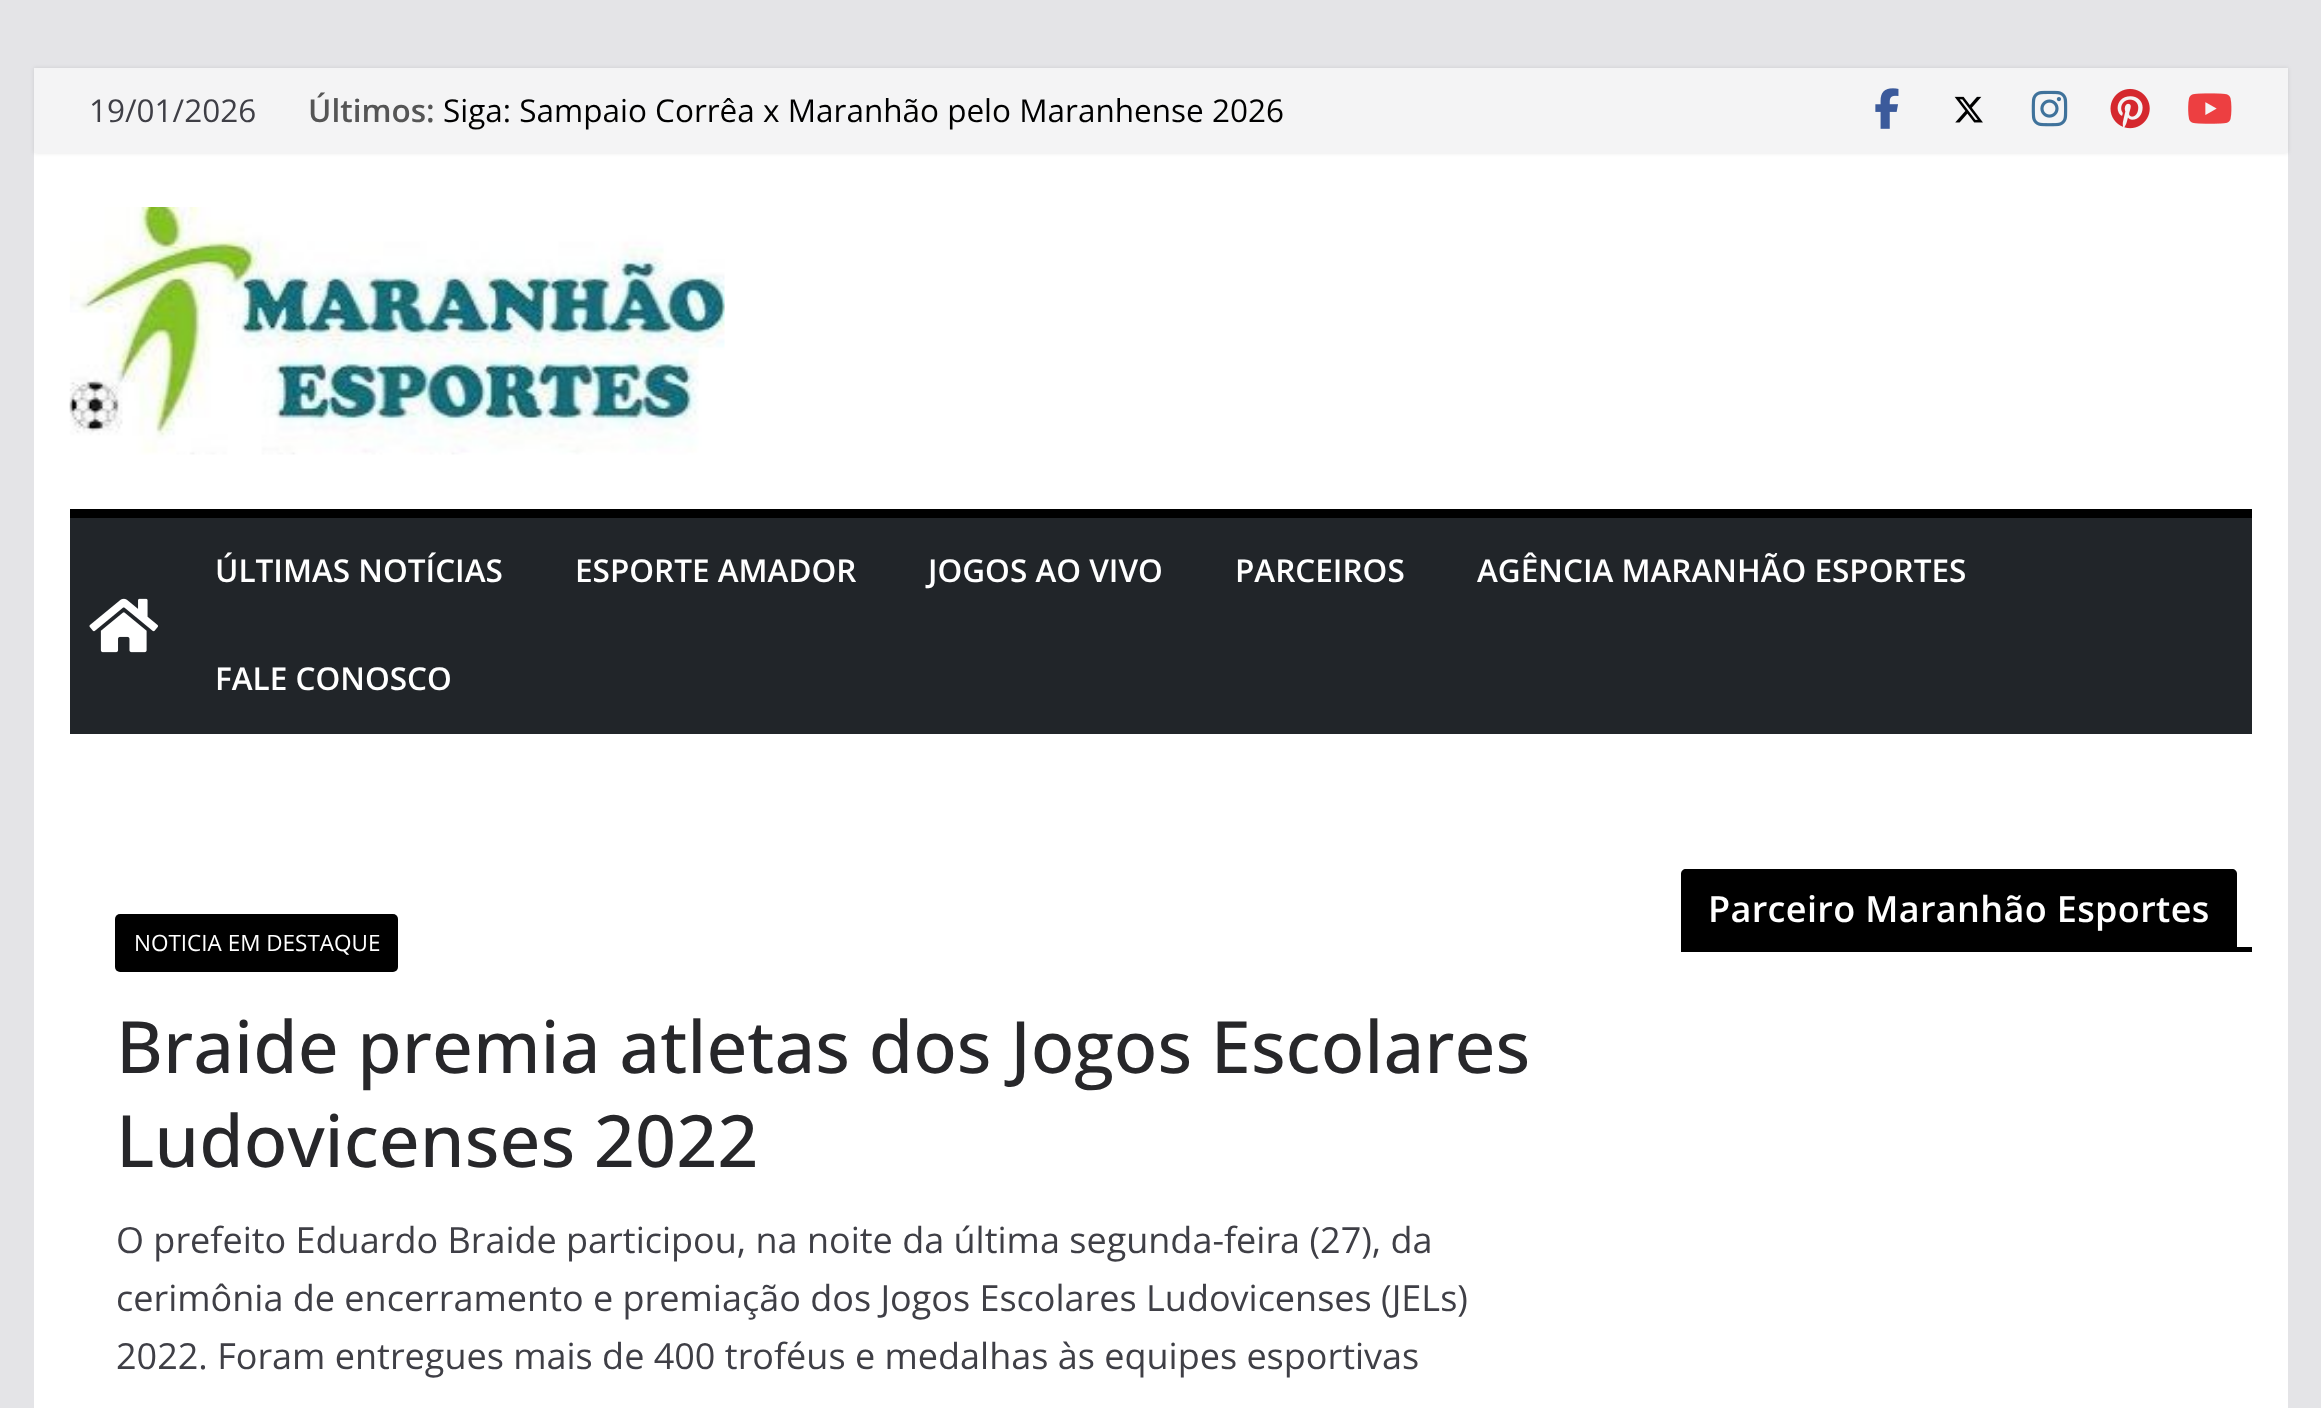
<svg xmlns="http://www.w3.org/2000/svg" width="2321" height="1408">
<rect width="100%" height="100%" fill="#e4e4e7"/>
<rect x="34" y="153" width="2254" height="1255" fill="#fff"/>
<rect x="34" y="68" width="2254" height="85" fill="#0000001a" filter="blur(2px)"/>
<rect x="34" y="68" width="2254" height="85" fill="#f4f4f5"/>
<text x="89" y="122" style="font-family:Open Sans;font-size:31.5px;fill:#3f3f46">19/01/2026</text>
<text x="308" y="122" style="font-family:Open Sans;font-size:31.5px;font-weight:600;fill:#555">Últimos:</text>
<text x="443" y="122" style="font-family:Open Sans;font-size:31.5px;fill:#000">Siga: Sampaio Corrêa x Maranhão pelo Maranhense 2026</text>
<image x="1875" y="88" width="24" height="41" href="media/1.png"/>
<image x="1954" y="96" width="29" height="27" href="media/2.png"/>
<image x="2031" y="90" width="37" height="37" href="media/3.png"/>
<image x="2110" y="88" width="40" height="41" href="media/4.png"/>
<image x="2188" y="93" width="44" height="31" href="media/5.png"/>
<image x="69" y="207" width="656" height="248" href="media/6.png"/>
<rect x="70" y="518" width="2182" height="216" fill="#212529"/>
<rect x="70" y="509" width="2182" height="9" fill="#000"/>
<image x="89" y="598" width="69" height="55" href="media/7.png"/>
<text x="215" y="582" style="font-family:Open Sans;font-size:31.5px;font-weight:600;fill:#fff">ÚLTIMAS NOTÍCIAS</text>
<text x="575" y="582" style="font-family:Open Sans;font-size:31.5px;font-weight:600;fill:#fff">ESPORTE AMADOR</text>
<text x="928" y="582" style="font-family:Open Sans;font-size:31.5px;font-weight:600;fill:#fff">JOGOS AO VIVO</text>
<text x="1235" y="582" style="font-family:Open Sans;font-size:31.5px;font-weight:600;fill:#fff">PARCEIROS</text>
<text x="1477" y="582" style="font-family:Open Sans;font-size:31.5px;font-weight:600;fill:#fff">AGÊNCIA MARANHÃO ESPORTES</text>
<text x="215" y="690" style="font-family:Open Sans;font-size:31.5px;font-weight:600;fill:#fff">FALE CONOSCO</text>
<rect x="1681" y="947" width="571" height="5" fill="#000"/>
<path d="M1686 869h546c3 0 5 2 5 5v73h-556v-73c0-3 2-5 5-5z" fill="#000"/>
<text x="1708" y="922" style="font-family:Open Sans;font-size:36px;font-weight:600;letter-spacing:0.35px;fill:#fff">Parceiro Maranhão Esportes</text>
<rect x="115" y="914" width="283" height="58" rx="5" fill="#000"/>
<text x="134" y="951" style="font-family:Open Sans;font-size:22.5px;fill:#fff">NOTICIA EM DESTAQUE</text>
<text x="116" y="1073" style="font-family:Open Sans;font-size:72px;font-weight:500;fill:#27272a">Braide premia atletas dos Jogos Escolares</text>
<text x="116" y="1167" style="font-family:Open Sans;font-size:72px;font-weight:500;fill:#27272a">Ludovicenses 2022</text>
<text x="116" y="1253" style="font-family:Open Sans;font-size:36px;fill:#3f3f46">O prefeito Eduardo Braide participou, na noite da última segunda-feira (27), da</text>
<text x="116" y="1311" style="font-family:Open Sans;font-size:36px;fill:#3f3f46">cerimônia de encerramento e premiação dos Jogos Escolares Ludovicenses (JELs)</text>
<text x="116" y="1369" style="font-family:Open Sans;font-size:36px;fill:#3f3f46">2022. Foram entregues mais de 400 troféus e medalhas às equipes esportivas</text>
</svg>
